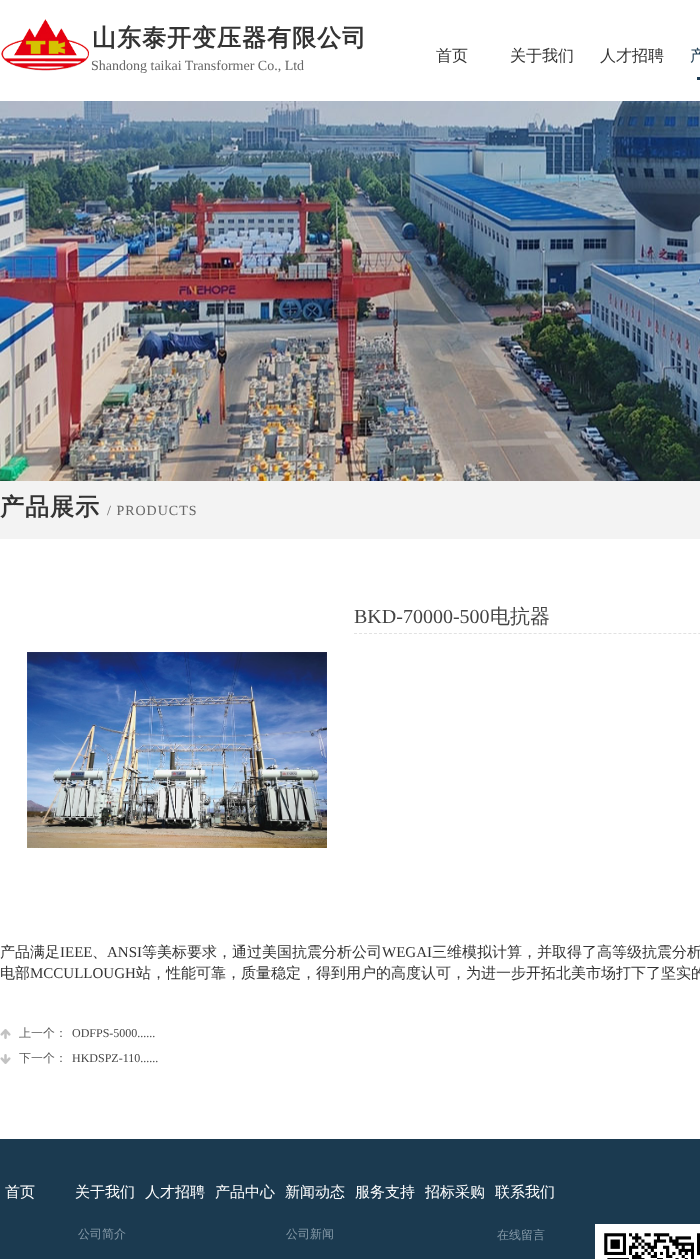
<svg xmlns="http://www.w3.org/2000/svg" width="700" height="1259">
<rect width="100%" height="100%" fill="#fff"/>
<image x="1" y="19" width="88" height="52" href="media/1.png"/>
<text x="92" y="46" style="font-family:WenQuanYi Zen Hei;font-size:24px;font-weight:bold;letter-spacing:1px;fill:#333">山东泰开变压器有限公司</text>
<text x="436" y="61" style="font-family:WenQuanYi Zen Hei;font-size:16px;font-weight:500;fill:#333">首页</text>
<text x="510" y="61" style="font-family:WenQuanYi Zen Hei;font-size:16px;font-weight:500;fill:#333">关于我们</text>
<text x="600" y="61" style="font-family:WenQuanYi Zen Hei;font-size:16px;font-weight:500;fill:#333">人才招聘</text>
<rect x="697" y="77" width="3" height="3" fill="#1c3a52"/>
<text x="690" y="61" style="font-family:WenQuanYi Zen Hei;font-size:16px;font-weight:500;fill:#1b3a50">产</text>
<text x="91" y="70" style="font-family:Liberation Serif;font-size:14px;fill:#666">Shandong taikai Transformer Co., Ltd</text>
<image x="0" y="101" width="700" height="380" href="media/2.png"/>
<rect y="481" width="700" height="58" fill="#f3f3f3"/>
<text x="0" y="515" style="font-family:WenQuanYi Zen Hei;font-size:24px;font-weight:bold;letter-spacing:1px;fill:#333">产品展示</text>
<text x="107" y="515" style="font-family:Liberation Serif;font-size:14px;letter-spacing:1px;fill:#666">/ PRODUCTS</text>
<path d="M354 633.5h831" fill="none" stroke="#e2e2e2" stroke-dasharray="3 1.99"/>
<text x="354" y="623" style="font-family:Liberation Serif;font-size:20px;fill:#454545">BKD-70000-500</text>
<text x="490" y="623" style="font-family:WenQuanYi Zen Hei;font-size:20px;font-weight:500;fill:#454545">电抗器</text>
<image x="27" y="652" width="300" height="196" href="media/3.png"/>
<text x="0" y="957" style="font-family:WenQuanYi Zen Hei;font-size:15px;font-weight:500;fill:#333">产品满足</text>
<text x="60" y="957" style="font-family:Liberation Serif;font-size:15px;fill:#333">IEEE</text>
<text x="92" y="957" style="font-family:WenQuanYi Zen Hei;font-size:15px;font-weight:500;fill:#333">、</text>
<text x="107" y="957" style="font-family:Liberation Serif;font-size:15px;fill:#333">ANSI</text>
<text x="142" y="957" style="font-family:WenQuanYi Zen Hei;font-size:15px;font-weight:500;fill:#333">等美标要求，通过美国抗震分析公司</text>
<text x="382" y="957" style="font-family:Liberation Serif;font-size:15px;fill:#333">WEGAI</text>
<text x="432" y="957" style="font-family:WenQuanYi Zen Hei;font-size:15px;font-weight:500;fill:#333">三维模拟计算，并取得了高等级抗震分析</text>
<text x="0" y="978" style="font-family:WenQuanYi Zen Hei;font-size:15px;font-weight:500;fill:#333">电部</text>
<text x="30" y="978" style="font-family:Liberation Serif;font-size:15px;fill:#333">MCCULLOUGH</text>
<text x="136" y="978" style="font-family:WenQuanYi Zen Hei;font-size:15px;font-weight:500;fill:#333">站，性能可靠，质量稳定，得到用户的高度认可，为进一步开拓北美市场打下了坚实的</text>
<rect y="1029" width="11" height="10" fill="#c2c2c2"/>
<image x="0" y="1029" width="11" height="10" href="media/4.png"/>
<text x="19" y="1037" style="font-family:WenQuanYi Zen Hei;font-size:12px;font-weight:500;fill:#595959">上一个：</text>
<text x="72" y="1037" style="font-family:Liberation Serif;font-size:12px;fill:#454545">ODFPS-5000......</text>
<rect y="1054" width="11" height="10" fill="#c2c2c2"/>
<image x="0" y="1054" width="11" height="10" href="media/5.png"/>
<text x="19" y="1062" style="font-family:WenQuanYi Zen Hei;font-size:12px;font-weight:500;fill:#595959">下一个：</text>
<text x="72" y="1062" style="font-family:Liberation Serif;font-size:12px;fill:#454545">HKDSPZ-110......</text>
<rect y="1139" width="700" height="120" fill="#1b3a50"/>
<text x="5" y="1197" style="font-family:WenQuanYi Zen Hei;font-size:15px;font-weight:500;fill:#fff">首页</text>
<text x="75" y="1197" style="font-family:WenQuanYi Zen Hei;font-size:15px;font-weight:500;fill:#fff">关于我们</text>
<text x="145" y="1197" style="font-family:WenQuanYi Zen Hei;font-size:15px;font-weight:500;fill:#fff">人才招聘</text>
<text x="215" y="1197" style="font-family:WenQuanYi Zen Hei;font-size:15px;font-weight:500;fill:#fff">产品中心</text>
<text x="285" y="1197" style="font-family:WenQuanYi Zen Hei;font-size:15px;font-weight:500;fill:#fff">新闻动态</text>
<text x="355" y="1197" style="font-family:WenQuanYi Zen Hei;font-size:15px;font-weight:500;fill:#fff">服务支持</text>
<text x="425" y="1197" style="font-family:WenQuanYi Zen Hei;font-size:15px;font-weight:500;fill:#fff">招标采购</text>
<text x="495" y="1197" style="font-family:WenQuanYi Zen Hei;font-size:15px;font-weight:500;fill:#fff">联系我们</text>
<text x="78" y="1238" style="font-family:WenQuanYi Zen Hei;font-size:12px;font-weight:500;fill:#869aa8">公司简介</text>
<text x="286" y="1238" style="font-family:WenQuanYi Zen Hei;font-size:12px;font-weight:500;fill:#869aa8">公司新闻</text>
<text x="497" y="1239" style="font-family:WenQuanYi Zen Hei;font-size:12px;font-weight:500;fill:#869aa8">在线留言</text>
<image x="595" y="1224" width="105" height="35" href="media/6.png"/>
</svg>
